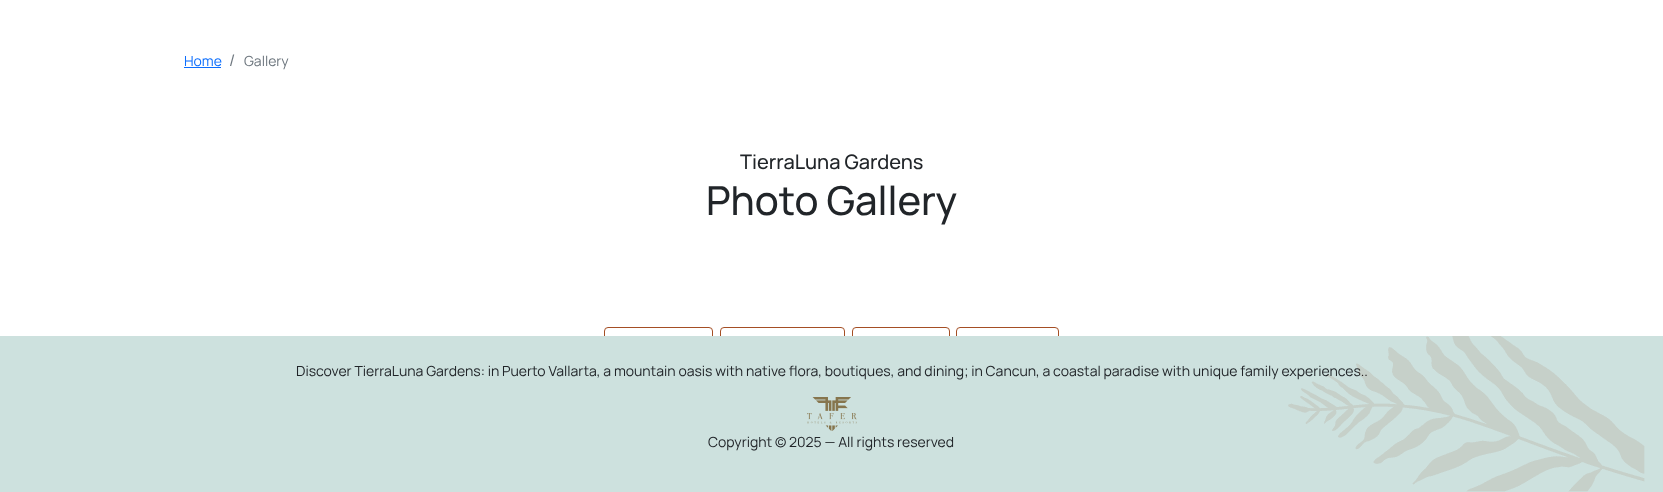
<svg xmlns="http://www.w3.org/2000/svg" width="1663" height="492">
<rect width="100%" height="100%" fill="#fff"/>
<text x="184" y="66" style="font-family:Manrope;font-size:14px;fill:#0d6efd">Home</text>
<rect x="184" y="67" width="37" height="1" fill="#0d6efd"/>
<text x="229" y="66" style="font-family:Manrope;font-size:16px;fill:#6c757d">/</text>
<text x="244" y="66" style="font-family:Manrope;font-size:14px;fill:#6c757d">Gallery</text>
<text x="740" y="169" style="font-family:Manrope;font-size:20px;font-weight:500;fill:#212529">TierraLuna Gardens</text>
<text x="706" y="215" style="font-family:Manrope;font-size:40px;font-weight:500;fill:#212529">Photo Gallery</text>
<rect x="604.5" y="327.5" width="108" height="41" rx="3.5" fill="none" stroke="#a44e24"/>
<rect x="720.5" y="327.5" width="124" height="41" rx="3.5" fill="none" stroke="#a44e24"/>
<rect x="852.5" y="327.5" width="97" height="41" rx="3.5" fill="none" stroke="#a44e24"/>
<rect x="956.5" y="327.5" width="102" height="41" rx="3.5" fill="none" stroke="#a44e24"/>
<rect y="336" width="1663" height="156" fill="#cde1de"/>
<text x="296" y="376" style="font-family:Manrope;font-size:14px;fill:#212529">Discover TierraLuna Gardens: in Puerto Vallarta, a mountain oasis with native flora, boutiques, and dining; in Cancun, a coastal paradise with unique family experiences..</text>
<image x="1288" y="336" width="357" height="156" href="media/1.png"/>
<image x="807" y="397" width="50" height="34" href="media/2.png"/>
<text x="708" y="447" style="font-family:Manrope;font-size:14px;fill:#212529">Copyright © 2025 — All rights reserved</text>
</svg>
